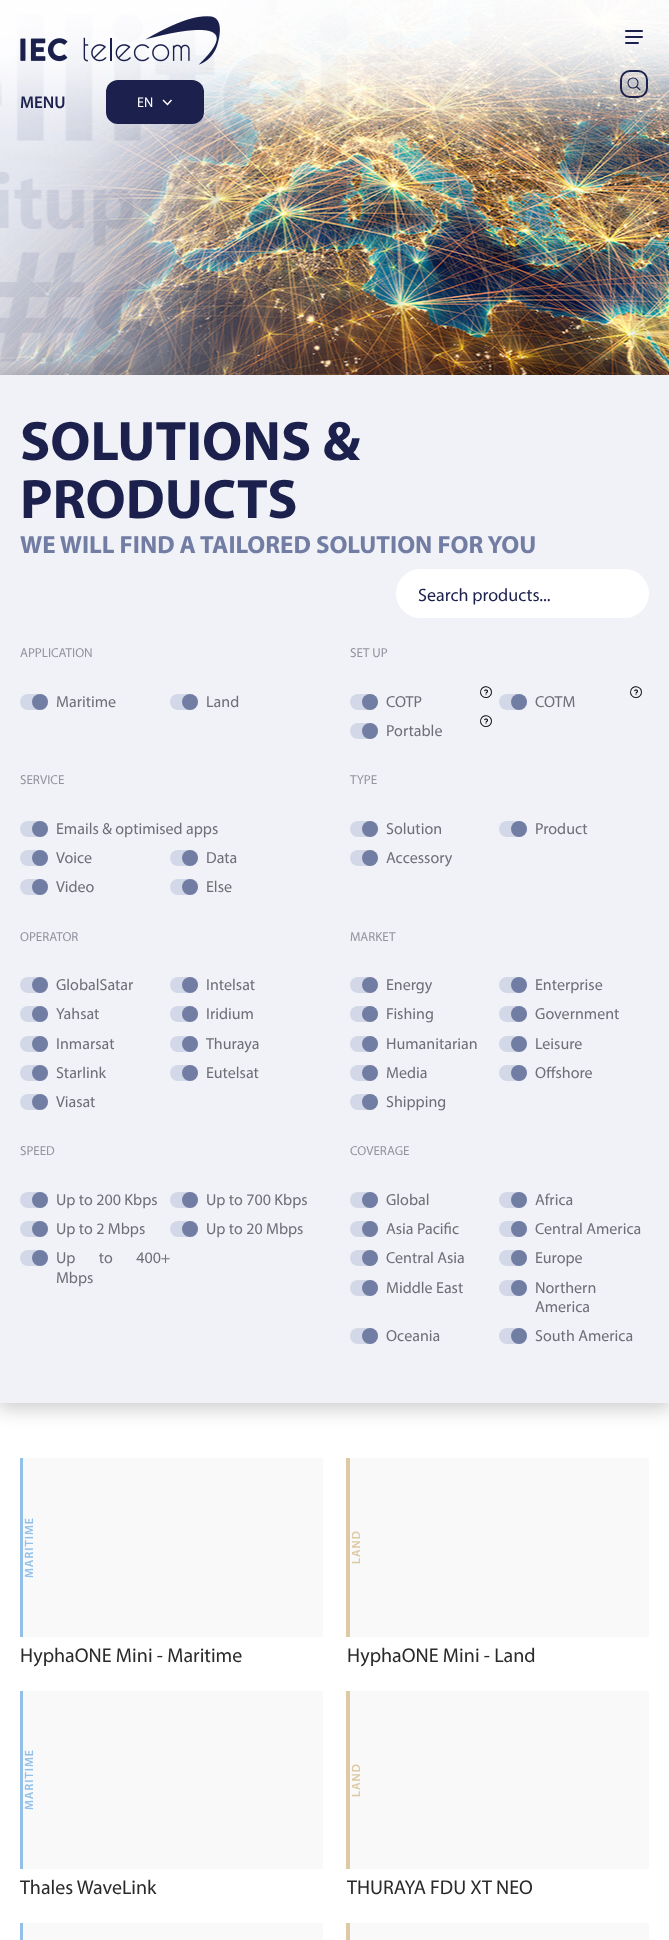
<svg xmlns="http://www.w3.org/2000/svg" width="669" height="1940">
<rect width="100%" height="100%" fill="#fff"/>
<image x="0" y="0" width="669" height="375" href="media/2.png"/>
<image x="20" y="16" width="200" height="49" href="media/1.png"/>
<rect x="621" y="71" width="26" height="26" rx="9" fill="none" stroke="#1b204c" stroke-width="2"/>
<circle cx="633" cy="83" r="5" fill="none" stroke="#1b204c" stroke-width="1.1"/>
<path d="M640 90l-3.5-3.5" fill="none" stroke="#1b204c" stroke-width="1.1" stroke-linecap="round" stroke-linejoin="round"/>
<rect x="625" y="30" width="18" height="2" rx="1" fill="#1b204c"/>
<rect x="625" y="36" width="18" height="2" rx="1" fill="#1b204c"/>
<rect x="625" y="42" width="14" height="2" rx="1" fill="#1b204c"/>
<text x="20" y="108" style="font-family:Myriad;font-size:17px;font-weight:600;fill:#1b204c">MENU</text>
<rect x="106" y="80" width="98" height="44" rx="12" fill="#1b204c"/>
<text x="137" y="107" style="font-family:Myriad;font-size:14px;fill:#fff">EN</text>
<path d="M171.5 100l-4 4.5l-4.5-4.5" fill="none" stroke="#fff" stroke-width="1.5"/>
<rect x="-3" y="374" width="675" height="1034" fill="#00000036" filter="blur(10px)"/>
<rect y="375" width="669" height="1028" fill="#f1f2f7"/>
<text x="20" y="460" style="font-family:Myriad;font-size:56px;font-weight:bold;fill:#1b204c">SOLUTIONS &amp;</text>
<text x="20" y="518" style="font-family:Myriad;font-size:56px;font-weight:bold;fill:#1b204c">PRODUCTS</text>
<text x="20" y="553" style="font-family:Myriad;font-size:25px;font-weight:bold;fill:#727da4">WE WILL FIND A TAILORED SOLUTION FOR YOU</text>
<rect x="396" y="569" width="253" height="49" rx="24.5" fill="#fff"/>
<text x="418" y="601" style="font-family:Myriad;font-size:18px;fill:#1b204c">Search products...</text>
<text x="20" y="657" style="font-family:Myriad;font-size:13px;fill:#9494a0">APPLICATION</text>
<rect x="20" y="694" width="28" height="16" rx="8" fill="#d2d8e8"/>
<circle cx="40" cy="702" r="8" fill="#727da4"/>
<text x="56" y="707" style="font-family:Myriad;font-size:16px;fill:#6f6f77">Maritime</text>
<rect x="170" y="694" width="28" height="16" rx="8" fill="#d2d8e8"/>
<circle cx="190" cy="702" r="8" fill="#727da4"/>
<text x="206" y="707" style="font-family:Myriad;font-size:16px;fill:#6f6f77">Land</text>
<text x="350" y="657" style="font-family:Myriad;font-size:13px;fill:#9494a0">SET UP</text>
<image x="480" y="686" width="12" height="12" href="media/3.png"/>
<rect x="350" y="694" width="28" height="16" rx="8" fill="#d2d8e8"/>
<circle cx="370" cy="702" r="8" fill="#727da4"/>
<text x="386" y="707" style="font-family:Myriad;font-size:16px;fill:#6f6f77">COTP</text>
<image x="630" y="686" width="12" height="12" href="media/3.png"/>
<rect x="499" y="694" width="28" height="16" rx="8" fill="#d2d8e8"/>
<circle cx="519" cy="702" r="8" fill="#727da4"/>
<text x="535" y="707" style="font-family:Myriad;font-size:16px;fill:#6f6f77">COTM</text>
<image x="480" y="715" width="12" height="12" href="media/3.png"/>
<rect x="350" y="723" width="28" height="16" rx="8" fill="#d2d8e8"/>
<circle cx="370" cy="731" r="8" fill="#727da4"/>
<text x="386" y="736" style="font-family:Myriad;font-size:16px;fill:#6f6f77">Portable</text>
<text x="20" y="784" style="font-family:Myriad;font-size:13px;fill:#9494a0">SERVICE</text>
<rect x="20" y="821" width="28" height="16" rx="8" fill="#d2d8e8"/>
<circle cx="40" cy="829" r="8" fill="#727da4"/>
<text x="56" y="834" style="font-family:Myriad;font-size:16px;fill:#6f6f77">Emails &amp; optimised apps</text>
<rect x="20" y="850" width="28" height="16" rx="8" fill="#d2d8e8"/>
<circle cx="40" cy="858" r="8" fill="#727da4"/>
<text x="56" y="863" style="font-family:Myriad;font-size:16px;fill:#6f6f77">Voice</text>
<rect x="170" y="850" width="28" height="16" rx="8" fill="#d2d8e8"/>
<circle cx="190" cy="858" r="8" fill="#727da4"/>
<text x="206" y="863" style="font-family:Myriad;font-size:16px;fill:#6f6f77">Data</text>
<rect x="20" y="879" width="28" height="16" rx="8" fill="#d2d8e8"/>
<circle cx="40" cy="887" r="8" fill="#727da4"/>
<text x="56" y="892" style="font-family:Myriad;font-size:16px;fill:#6f6f77">Video</text>
<rect x="170" y="879" width="28" height="16" rx="8" fill="#d2d8e8"/>
<circle cx="190" cy="887" r="8" fill="#727da4"/>
<text x="206" y="892" style="font-family:Myriad;font-size:16px;fill:#6f6f77">Else</text>
<text x="350" y="784" style="font-family:Myriad;font-size:13px;fill:#9494a0">TYPE</text>
<rect x="350" y="821" width="28" height="16" rx="8" fill="#d2d8e8"/>
<circle cx="370" cy="829" r="8" fill="#727da4"/>
<text x="386" y="834" style="font-family:Myriad;font-size:16px;fill:#6f6f77">Solution</text>
<rect x="499" y="821" width="28" height="16" rx="8" fill="#d2d8e8"/>
<circle cx="519" cy="829" r="8" fill="#727da4"/>
<text x="535" y="834" style="font-family:Myriad;font-size:16px;fill:#6f6f77">Product</text>
<rect x="350" y="850" width="28" height="16" rx="8" fill="#d2d8e8"/>
<circle cx="370" cy="858" r="8" fill="#727da4"/>
<text x="386" y="863" style="font-family:Myriad;font-size:16px;fill:#6f6f77">Accessory</text>
<text x="20" y="941" style="font-family:Myriad;font-size:13px;fill:#9494a0">OPERATOR</text>
<rect x="20" y="977" width="28" height="16" rx="8" fill="#d2d8e8"/>
<circle cx="40" cy="985" r="8" fill="#727da4"/>
<text x="56" y="990" style="font-family:Myriad;font-size:16px;fill:#6f6f77">GlobalSatar</text>
<rect x="170" y="977" width="28" height="16" rx="8" fill="#d2d8e8"/>
<circle cx="190" cy="985" r="8" fill="#727da4"/>
<text x="206" y="990" style="font-family:Myriad;font-size:16px;fill:#6f6f77">Intelsat</text>
<rect x="20" y="1006" width="28" height="16" rx="8" fill="#d2d8e8"/>
<circle cx="40" cy="1014" r="8" fill="#727da4"/>
<text x="56" y="1019" style="font-family:Myriad;font-size:16px;fill:#6f6f77">Yahsat</text>
<rect x="170" y="1006" width="28" height="16" rx="8" fill="#d2d8e8"/>
<circle cx="190" cy="1014" r="8" fill="#727da4"/>
<text x="206" y="1019" style="font-family:Myriad;font-size:16px;fill:#6f6f77">Iridium</text>
<rect x="20" y="1036" width="28" height="16" rx="8" fill="#d2d8e8"/>
<circle cx="40" cy="1044" r="8" fill="#727da4"/>
<text x="56" y="1049" style="font-family:Myriad;font-size:16px;fill:#6f6f77">Inmarsat</text>
<rect x="170" y="1036" width="28" height="16" rx="8" fill="#d2d8e8"/>
<circle cx="190" cy="1044" r="8" fill="#727da4"/>
<text x="206" y="1049" style="font-family:Myriad;font-size:16px;fill:#6f6f77">Thuraya</text>
<rect x="20" y="1065" width="28" height="16" rx="8" fill="#d2d8e8"/>
<circle cx="40" cy="1073" r="8" fill="#727da4"/>
<text x="56" y="1078" style="font-family:Myriad;font-size:16px;fill:#6f6f77">Starlink</text>
<rect x="170" y="1065" width="28" height="16" rx="8" fill="#d2d8e8"/>
<circle cx="190" cy="1073" r="8" fill="#727da4"/>
<text x="206" y="1078" style="font-family:Myriad;font-size:16px;fill:#6f6f77">Eutelsat</text>
<rect x="20" y="1094" width="28" height="16" rx="8" fill="#d2d8e8"/>
<circle cx="40" cy="1102" r="8" fill="#727da4"/>
<text x="56" y="1107" style="font-family:Myriad;font-size:16px;fill:#6f6f77">Viasat</text>
<text x="350" y="941" style="font-family:Myriad;font-size:13px;fill:#9494a0">MARKET</text>
<rect x="350" y="977" width="28" height="16" rx="8" fill="#d2d8e8"/>
<circle cx="370" cy="985" r="8" fill="#727da4"/>
<text x="386" y="990" style="font-family:Myriad;font-size:16px;fill:#6f6f77">Energy</text>
<rect x="499" y="977" width="28" height="16" rx="8" fill="#d2d8e8"/>
<circle cx="519" cy="985" r="8" fill="#727da4"/>
<text x="535" y="990" style="font-family:Myriad;font-size:16px;fill:#6f6f77">Enterprise</text>
<rect x="350" y="1006" width="28" height="16" rx="8" fill="#d2d8e8"/>
<circle cx="370" cy="1014" r="8" fill="#727da4"/>
<text x="386" y="1019" style="font-family:Myriad;font-size:16px;fill:#6f6f77">Fishing</text>
<rect x="499" y="1006" width="28" height="16" rx="8" fill="#d2d8e8"/>
<circle cx="519" cy="1014" r="8" fill="#727da4"/>
<text x="535" y="1019" style="font-family:Myriad;font-size:16px;fill:#6f6f77">Government</text>
<rect x="350" y="1036" width="28" height="16" rx="8" fill="#d2d8e8"/>
<circle cx="370" cy="1044" r="8" fill="#727da4"/>
<text x="386" y="1049" style="font-family:Myriad;font-size:16px;fill:#6f6f77">Humanitarian</text>
<rect x="499" y="1036" width="28" height="16" rx="8" fill="#d2d8e8"/>
<circle cx="519" cy="1044" r="8" fill="#727da4"/>
<text x="535" y="1049" style="font-family:Myriad;font-size:16px;fill:#6f6f77">Leisure</text>
<rect x="350" y="1065" width="28" height="16" rx="8" fill="#d2d8e8"/>
<circle cx="370" cy="1073" r="8" fill="#727da4"/>
<text x="386" y="1078" style="font-family:Myriad;font-size:16px;fill:#6f6f77">Media</text>
<rect x="499" y="1065" width="28" height="16" rx="8" fill="#d2d8e8"/>
<circle cx="519" cy="1073" r="8" fill="#727da4"/>
<text x="535" y="1078" style="font-family:Myriad;font-size:16px;fill:#6f6f77">Offshore</text>
<rect x="350" y="1094" width="28" height="16" rx="8" fill="#d2d8e8"/>
<circle cx="370" cy="1102" r="8" fill="#727da4"/>
<text x="386" y="1107" style="font-family:Myriad;font-size:16px;fill:#6f6f77">Shipping</text>
<text x="20" y="1155" style="font-family:Myriad;font-size:13px;fill:#9494a0">SPEED</text>
<rect x="20" y="1192" width="28" height="16" rx="8" fill="#d2d8e8"/>
<circle cx="40" cy="1200" r="8" fill="#727da4"/>
<text x="56" y="1205" style="font-family:Myriad;font-size:16px;fill:#6f6f77">Up to 200 Kbps</text>
<rect x="170" y="1192" width="28" height="16" rx="8" fill="#d2d8e8"/>
<circle cx="190" cy="1200" r="8" fill="#727da4"/>
<text x="206" y="1205" style="font-family:Myriad;font-size:16px;fill:#6f6f77">Up to 700 Kbps</text>
<rect x="20" y="1221" width="28" height="16" rx="8" fill="#d2d8e8"/>
<circle cx="40" cy="1229" r="8" fill="#727da4"/>
<text x="56" y="1234" style="font-family:Myriad;font-size:16px;fill:#6f6f77">Up to 2 Mbps</text>
<rect x="170" y="1221" width="28" height="16" rx="8" fill="#d2d8e8"/>
<circle cx="190" cy="1229" r="8" fill="#727da4"/>
<text x="206" y="1234" style="font-family:Myriad;font-size:16px;fill:#6f6f77">Up to 20 Mbps</text>
<rect x="20" y="1250" width="28" height="16" rx="8" fill="#d2d8e8"/>
<circle cx="40" cy="1258" r="8" fill="#727da4"/>
<text x="56" y="1263" word-spacing="20" style="font-family:Myriad;font-size:16px;fill:#6f6f77">Up to 400+</text>
<text x="56" y="1283" style="font-family:Myriad;font-size:16px;fill:#6f6f77">Mbps</text>
<text x="350" y="1155" style="font-family:Myriad;font-size:13px;fill:#9494a0">COVERAGE</text>
<rect x="350" y="1192" width="28" height="16" rx="8" fill="#d2d8e8"/>
<circle cx="370" cy="1200" r="8" fill="#727da4"/>
<text x="386" y="1205" style="font-family:Myriad;font-size:16px;fill:#6f6f77">Global</text>
<rect x="499" y="1192" width="28" height="16" rx="8" fill="#d2d8e8"/>
<circle cx="519" cy="1200" r="8" fill="#727da4"/>
<text x="535" y="1205" style="font-family:Myriad;font-size:16px;fill:#6f6f77">Africa</text>
<rect x="350" y="1221" width="28" height="16" rx="8" fill="#d2d8e8"/>
<circle cx="370" cy="1229" r="8" fill="#727da4"/>
<text x="386" y="1234" style="font-family:Myriad;font-size:16px;fill:#6f6f77">Asia Pacific</text>
<rect x="499" y="1221" width="28" height="16" rx="8" fill="#d2d8e8"/>
<circle cx="519" cy="1229" r="8" fill="#727da4"/>
<text x="535" y="1234" style="font-family:Myriad;font-size:16px;fill:#6f6f77">Central America</text>
<rect x="350" y="1250" width="28" height="16" rx="8" fill="#d2d8e8"/>
<circle cx="370" cy="1258" r="8" fill="#727da4"/>
<text x="386" y="1263" style="font-family:Myriad;font-size:16px;fill:#6f6f77">Central Asia</text>
<rect x="499" y="1250" width="28" height="16" rx="8" fill="#d2d8e8"/>
<circle cx="519" cy="1258" r="8" fill="#727da4"/>
<text x="535" y="1263" style="font-family:Myriad;font-size:16px;fill:#6f6f77">Europe</text>
<rect x="350" y="1280" width="28" height="16" rx="8" fill="#d2d8e8"/>
<circle cx="370" cy="1288" r="8" fill="#727da4"/>
<text x="386" y="1293" style="font-family:Myriad;font-size:16px;fill:#6f6f77">Middle East</text>
<rect x="499" y="1280" width="28" height="16" rx="8" fill="#d2d8e8"/>
<circle cx="519" cy="1288" r="8" fill="#727da4"/>
<text x="535" y="1293" style="font-family:Myriad;font-size:16px;fill:#6f6f77">Northern</text>
<text x="535" y="1312" style="font-family:Myriad;font-size:16px;fill:#6f6f77">America</text>
<rect x="350" y="1328" width="28" height="16" rx="8" fill="#d2d8e8"/>
<circle cx="370" cy="1336" r="8" fill="#727da4"/>
<text x="386" y="1341" style="font-family:Myriad;font-size:16px;fill:#6f6f77">Oceania</text>
<rect x="499" y="1328" width="28" height="16" rx="8" fill="#d2d8e8"/>
<circle cx="519" cy="1336" r="8" fill="#727da4"/>
<text x="535" y="1341" style="font-family:Myriad;font-size:16px;fill:#6f6f77">South America</text>
<rect x="23" y="1458" width="300" height="179" fill="#f9f9fa"/>
<rect x="20" y="1458" width="3" height="179" fill="#92c0e9"/>
<text x="33" y="1578" transform="rotate(-90 33 1578)" style="font-family:Myriad;font-size:12px;font-weight:600;letter-spacing:1px;fill:#92c0e9">MARITIME</text>
<text x="20" y="1662" style="font-family:Myriad;font-size:20px;fill:#2a2a2a">HyphaONE Mini - Maritime</text>
<rect x="350" y="1458" width="299" height="179" fill="#f9f9fa"/>
<rect x="346" y="1458" width="4" height="179" fill="#ddc9a3"/>
<text x="360" y="1564" transform="rotate(-90 360 1564)" style="font-family:Myriad;font-size:12px;font-weight:600;letter-spacing:1px;fill:#ddc9a3">LAND</text>
<text x="347" y="1662" style="font-family:Myriad;font-size:20px;fill:#2a2a2a">HyphaONE Mini - Land</text>
<rect x="23" y="1691" width="300" height="178" fill="#f9f9fa"/>
<rect x="20" y="1691" width="3" height="178" fill="#92c0e9"/>
<text x="33" y="1810" transform="rotate(-90 33 1810)" style="font-family:Myriad;font-size:12px;font-weight:600;letter-spacing:1px;fill:#92c0e9">MARITIME</text>
<text x="20" y="1894" style="font-family:Myriad;font-size:20px;fill:#2a2a2a">Thales WaveLink</text>
<rect x="350" y="1691" width="299" height="178" fill="#f9f9fa"/>
<rect x="346" y="1691" width="4" height="178" fill="#ddc9a3"/>
<text x="360" y="1797" transform="rotate(-90 360 1797)" style="font-family:Myriad;font-size:12px;font-weight:600;letter-spacing:1px;fill:#ddc9a3">LAND</text>
<text x="347" y="1894" style="font-family:Myriad;font-size:20px;fill:#2a2a2a">THURAYA FDU XT NEO</text>
<rect x="23" y="1923" width="300" height="17" fill="#f9f9fa"/>
<rect x="20" y="1923" width="3" height="17" fill="#92c0e9"/>
<rect x="350" y="1923" width="299" height="17" fill="#f9f9fa"/>
<rect x="346" y="1923" width="4" height="17" fill="#ddc9a3"/>
</svg>
